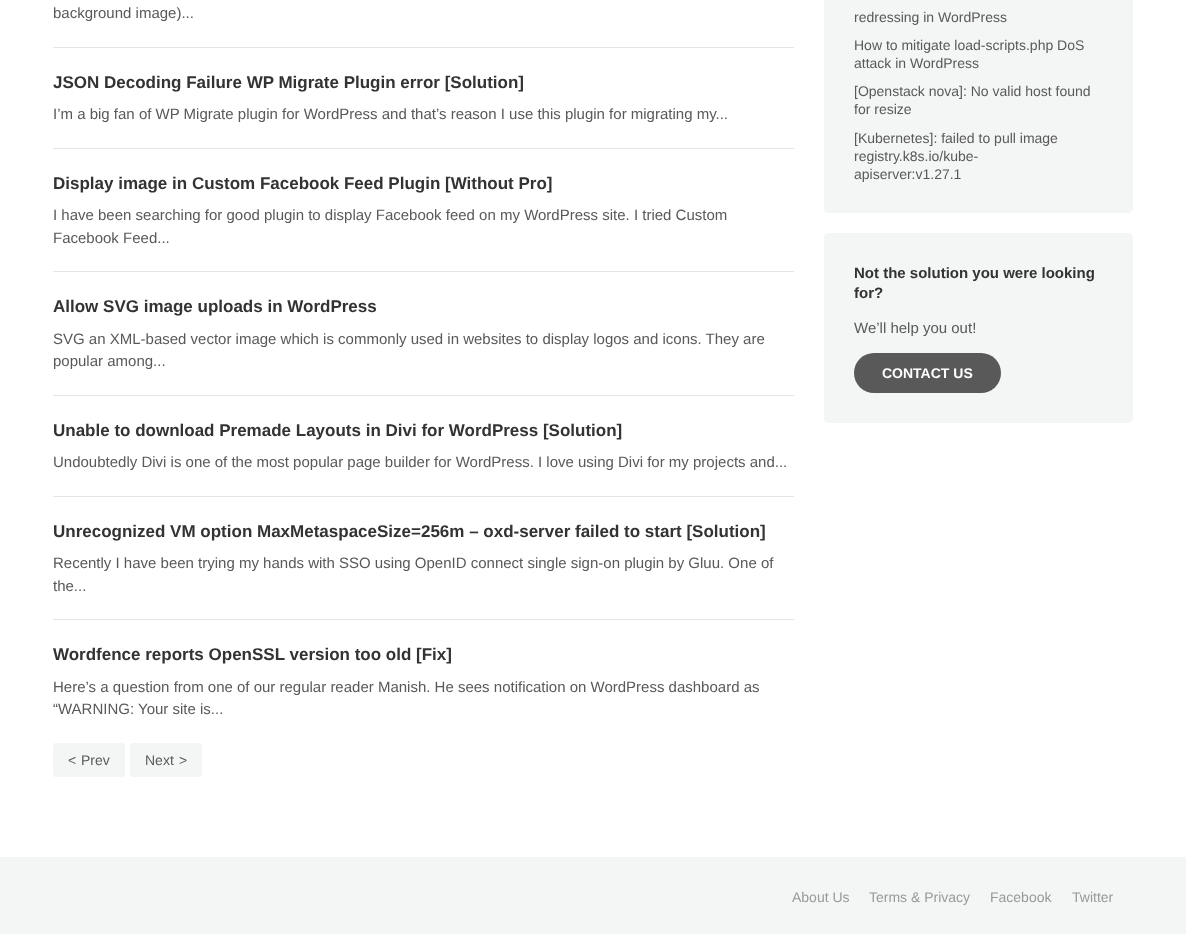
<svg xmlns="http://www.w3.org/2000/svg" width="1186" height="934">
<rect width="100%" height="100%" fill="#fff"/>
<rect x="53" y="47" width="741" height="1" fill="#e6e6e6"/>
<text x="53" y="18" style="font-family:Liberation Sans;font-size:15px;fill:#595959">background image)...</text>
<rect x="53" y="148" width="741" height="1" fill="#e6e6e6"/>
<text x="53" y="88" style="font-family:Liberation Sans;font-size:17px;font-weight:bold;fill:#333">JSON Decoding Failure WP Migrate Plugin error [Solution]</text>
<text x="53" y="119" style="font-family:Liberation Sans;font-size:15px;fill:#595959">I’m a big fan of WP Migrate plugin for WordPress and that’s reason I use this plugin for migrating my...</text>
<rect x="53" y="271" width="741" height="1" fill="#e6e6e6"/>
<text x="53" y="189" style="font-family:Liberation Sans;font-size:17px;font-weight:bold;fill:#333">Display image in Custom Facebook Feed Plugin [Without Pro]</text>
<text x="53" y="220" style="font-family:Liberation Sans;font-size:15px;fill:#595959">I have been searching for good plugin to display Facebook feed on my WordPress site. I tried Custom</text>
<text x="53" y="243" style="font-family:Liberation Sans;font-size:15px;fill:#595959">Facebook Feed...</text>
<rect x="53" y="395" width="741" height="1" fill="#e6e6e6"/>
<text x="53" y="312" style="font-family:Liberation Sans;font-size:17px;font-weight:bold;fill:#333">Allow SVG image uploads in WordPress</text>
<text x="53" y="344" style="font-family:Liberation Sans;font-size:15px;fill:#595959">SVG an XML-based vector image which is commonly used in websites to display logos and icons. They are</text>
<text x="53" y="366" style="font-family:Liberation Sans;font-size:15px;fill:#595959">popular among...</text>
<rect x="53" y="496" width="741" height="1" fill="#e6e6e6"/>
<text x="53" y="436" style="font-family:Liberation Sans;font-size:17px;font-weight:bold;fill:#333">Unable to download Premade Layouts in Divi for WordPress [Solution]</text>
<text x="53" y="467" style="font-family:Liberation Sans;font-size:15px;fill:#595959">Undoubtedly Divi is one of the most popular page builder for WordPress. I love using Divi for my projects and...</text>
<rect x="53" y="619" width="741" height="1" fill="#e6e6e6"/>
<text x="53" y="537" style="font-family:Liberation Sans;font-size:17px;font-weight:bold;fill:#333">Unrecognized VM option MaxMetaspaceSize=256m – oxd-server failed to start [Solution]</text>
<text x="53" y="568" style="font-family:Liberation Sans;font-size:15px;fill:#595959">Recently I have been trying my hands with SSO using OpenID connect single sign-on plugin by Gluu. One of</text>
<text x="53" y="591" style="font-family:Liberation Sans;font-size:15px;fill:#595959">the...</text>
<text x="53" y="660" style="font-family:Liberation Sans;font-size:17px;font-weight:bold;fill:#333">Wordfence reports OpenSSL version too old [Fix]</text>
<text x="53" y="692" style="font-family:Liberation Sans;font-size:15px;fill:#595959">Here’s a question from one of our regular reader Manish. He sees notification on WordPress dashboard as</text>
<text x="53" y="714" style="font-family:Liberation Sans;font-size:15px;fill:#595959">“WARNING: Your site is...</text>
<rect x="53" y="743" width="72" height="34" rx="3" fill="#f4f5f5"/>
<text x="68" y="765" style="font-family:Liberation Sans;font-size:14px;fill:#595959">&lt;</text>
<text x="81" y="765" style="font-family:Liberation Sans;font-size:14px;fill:#595959">Prev</text>
<rect x="130" y="743" width="72" height="34" rx="3" fill="#f4f5f5"/>
<text x="145" y="765" style="font-family:Liberation Sans;font-size:14px;fill:#595959">Next</text>
<text x="179" y="765" style="font-family:Liberation Sans;font-size:14px;fill:#595959">&gt;</text>
<rect x="824" y="-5" width="309" height="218" rx="5" fill="#f4f5f5"/>
<text x="854" y="22" style="font-family:Liberation Sans;font-size:14px;fill:#595959">redressing in WordPress</text>
<text x="854" y="50" style="font-family:Liberation Sans;font-size:14px;fill:#595959">How to mitigate load-scripts.php DoS</text>
<text x="854" y="68" style="font-family:Liberation Sans;font-size:14px;fill:#595959">attack in WordPress</text>
<text x="854" y="96" style="font-family:Liberation Sans;font-size:14px;fill:#595959">[Openstack nova]: No valid host found</text>
<text x="854" y="114" style="font-family:Liberation Sans;font-size:14px;fill:#595959">for resize</text>
<text x="854" y="143" style="font-family:Liberation Sans;font-size:14px;fill:#595959">[Kubernetes]: failed to pull image</text>
<text x="854" y="161" style="font-family:Liberation Sans;font-size:14px;fill:#595959">registry.k8s.io/kube-</text>
<text x="854" y="179" style="font-family:Liberation Sans;font-size:14px;fill:#595959">apiserver:v1.27.1</text>
<rect x="824" y="233" width="309" height="190" rx="5" fill="#f4f5f5"/>
<text x="854" y="278" style="font-family:Liberation Sans;font-size:15px;font-weight:bold;fill:#333">Not the solution you were looking</text>
<text x="854" y="298" style="font-family:Liberation Sans;font-size:15px;font-weight:bold;fill:#333">for?</text>
<text x="854" y="333" style="font-family:Liberation Sans;font-size:15px;fill:#595959">We’ll help you out!</text>
<rect x="854" y="353" width="147" height="40" rx="20" fill="#595959"/>
<text x="882" y="378" style="font-family:Liberation Sans;font-size:14px;font-weight:bold;fill:#fff">CONTACT US</text>
<rect y="857" width="1186" height="77" fill="#f4f5f5"/>
<text x="792" y="902" style="font-family:Liberation Sans;font-size:14px;fill:#999">About Us</text>
<text x="869" y="902" style="font-family:Liberation Sans;font-size:14px;fill:#999">Terms &amp; Privacy</text>
<text x="990" y="902" style="font-family:Liberation Sans;font-size:14px;fill:#999">Facebook</text>
<text x="1072" y="902" style="font-family:Liberation Sans;font-size:14px;fill:#999">Twitter</text>
</svg>
